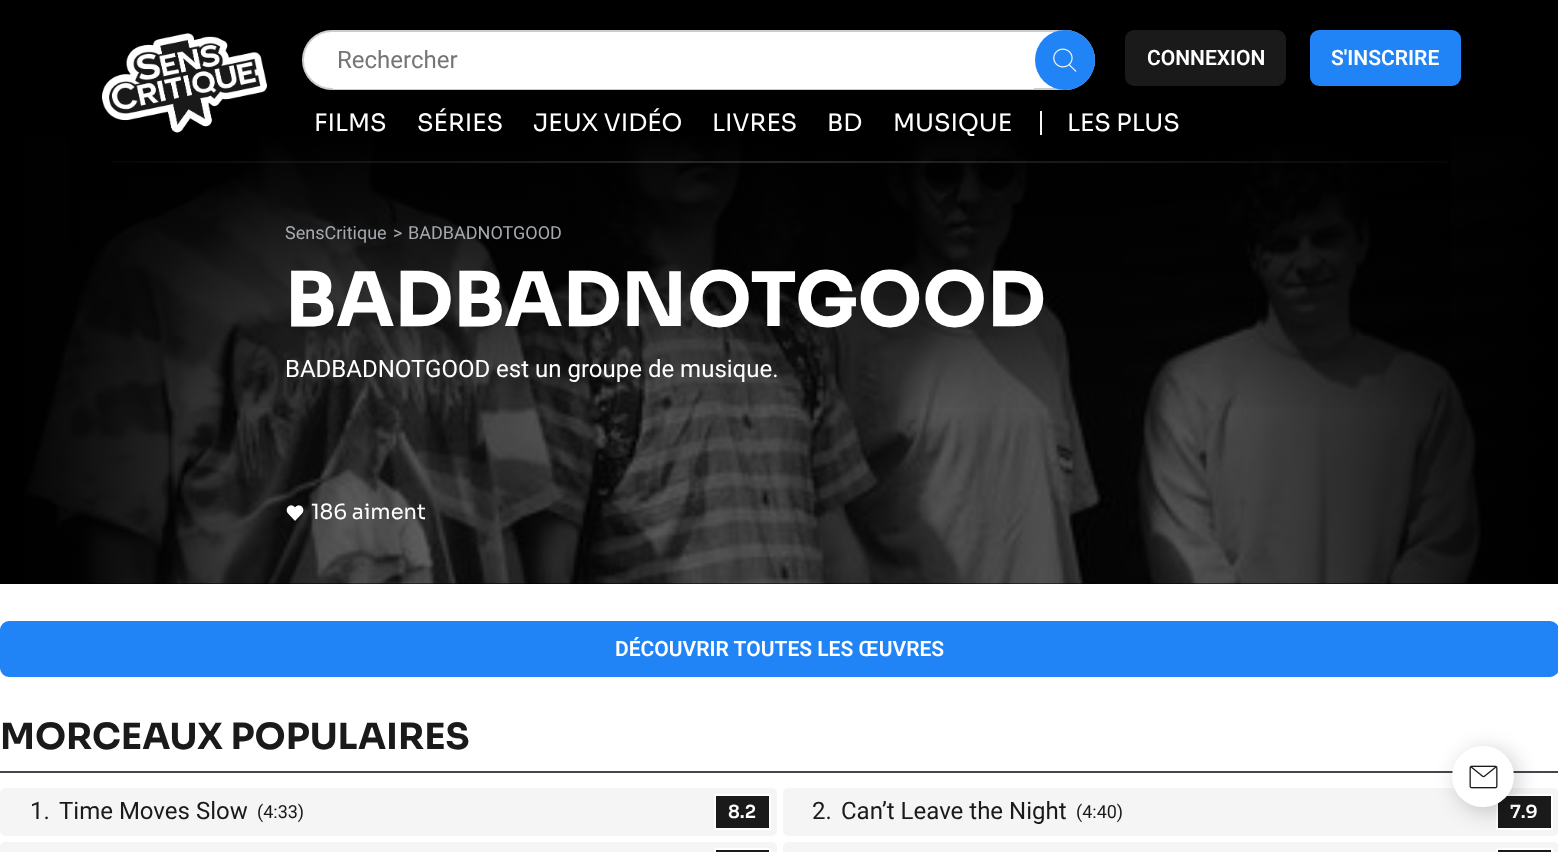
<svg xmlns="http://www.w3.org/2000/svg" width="1558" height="852">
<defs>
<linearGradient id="g1" gradientUnits="userSpaceOnUse" x1="0" y1="357" x2="375" y2="357"><stop offset="0" stop-color="#000"/><stop offset="1" stop-color="#000" stop-opacity="0"/></linearGradient>
<linearGradient id="g2" gradientUnits="userSpaceOnUse" x1="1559" y1="357" x2="1184" y2="357"><stop offset="0" stop-color="#000"/><stop offset="1" stop-color="#000" stop-opacity="0"/></linearGradient>
<linearGradient id="g3" gradientUnits="userSpaceOnUse" x1="779" y1="131" x2="779" y2="416"><stop offset="0" stop-color="#000"/><stop offset="1" stop-color="#000" stop-opacity="0"/></linearGradient>
<linearGradient id="g4" gradientUnits="userSpaceOnUse" x1="0" y1="161" x2="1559" y2="161"><stop offset="0" stop-color="#fff" stop-opacity="0"/><stop offset="0.5" stop-color="#fff" stop-opacity="0.15"/><stop offset="1" stop-color="#fff" stop-opacity="0"/></linearGradient>
</defs>
<rect width="100%" height="100%" fill="#fff"/>
<rect width="1558" height="584" fill="#000"/>
<image x="102" y="33" width="165" height="100" href="media/1.png"/>
<rect x="302" y="30" width="793" height="60" rx="30" fill="#fff"/>
<rect x="303" y="31" width="791" height="58" rx="29" fill="none" stroke="#00000033" stroke-width="2"/>
<rect x="333" y="88" width="701" height="1" fill="#fff"/>
<text x="337" y="68" style="font-family:Roboto;font-size:24px;fill:#757575">Rechercher</text>
<circle cx="1065" cy="60" r="30" fill="#2083f6"/>
<image x="1053" y="48" width="24" height="24" href="media/2.png"/>
<rect x="1126.5" y="31.5" width="158" height="53" rx="7.5" fill="#1a1a1a" stroke="#1a1a1a" stroke-width="3"/>
<text x="1147" y="65" style="font-family:Roboto;font-size:21px;font-weight:600;fill:#fff">CONNEXION</text>
<rect x="1311.5" y="31.5" width="148" height="53" rx="7.5" fill="#2083f6" stroke="#2083f6" stroke-width="3"/>
<text x="1331" y="65" style="font-family:Roboto;font-size:21px;font-weight:600;fill:#fff">S'INSCRIRE</text>
<text x="314" y="131" style="font-family:Sora;font-size:24px;fill:#fff">FILMS</text>
<text x="417" y="131" style="font-family:Sora;font-size:24px;fill:#fff">SÉRIES</text>
<text x="533" y="131" style="font-family:Sora;font-size:24px;fill:#fff">JEUX VIDÉO</text>
<text x="712" y="131" style="font-family:Sora;font-size:24px;fill:#fff">LIVRES</text>
<text x="827" y="131" style="font-family:Sora;font-size:24px;fill:#fff">BD</text>
<image x="2" y="135" width="1555" height="449" href="media/4.png"/>
<rect x="2" y="135" width="362" height="449" fill="url(#g1)"/>
<rect x="1195" y="135" width="362" height="449" fill="url(#g2)"/>
<rect x="67" y="135" width="1384" height="273" fill="url(#g3)"/>
<text x="893" y="131" style="font-family:Sora;font-size:24px;fill:#fff">MUSIQUE</text>
<rect x="1040" y="111" width="2" height="24" fill="#f5f5f5"/>
<text x="1067" y="131" style="font-family:Sora;font-size:24px;fill:#fff">LES PLUS</text>
<rect x="112" y="161" width="1335" height="2" fill="url(#g4)"/>
<text x="285" y="239" style="font-family:Roboto;font-size:18px;fill:#a6aaaf">SensCritique</text>
<text x="393" y="239" style="font-family:Roboto;font-size:18px;fill:#a6aaaf">&gt;</text>
<text x="408" y="239" style="font-family:Roboto;font-size:18px;fill:#a6aaaf">BADBADNOTGOOD</text>
<text x="285" y="326" style="font-family:Sora;font-size:75px;font-weight:bold;fill:#fff">BADBADNOTGOOD</text>
<text x="285" y="377" style="font-family:Roboto;font-size:24px;fill:#fff">BADBADNOTGOOD est un groupe de musique.</text>
<image x="286" y="505" width="18" height="16" href="media/3.png"/>
<text x="311" y="519" style="font-family:Sora;font-size:21px;fill:#fff">186 aiment</text>
<rect x="1.5" y="622.5" width="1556" height="53" rx="7.5" fill="#2083f6" stroke="#2083f6" stroke-width="3"/>
<text x="615" y="656" style="font-family:Roboto;font-size:21px;font-weight:600;fill:#fff">DÉCOUVRIR TOUTES LES ŒUVRES</text>
<rect y="771" width="1558" height="2" fill="#434850"/>
<text x="0" y="749" style="font-family:Sora;font-size:36px;font-weight:bold;fill:#1a1a1a">MORCEAUX POPULAIRES</text>
<rect y="788" width="777" height="48" rx="5" fill="#f5f5f5"/>
<text x="30" y="819" style="font-family:Roboto;font-size:24px;fill:#1a1a1a">1.</text>
<text x="59" y="819" style="font-family:Roboto;font-size:24px;fill:#1a1a1a">Time Moves Slow</text>
<text x="257" y="818" style="font-family:Roboto;font-size:18px;fill:#1a1a1a">(4:33)</text>
<rect x="715" y="795" width="55" height="34" rx="0.5" fill="#1a1a1a" stroke="#fff" stroke-width="2"/>
<text x="728" y="818" style="font-family:Sora;font-size:18px;font-weight:600;fill:#fff">8.2</text>
<rect x="783" y="788" width="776" height="48" rx="5" fill="#f5f5f5"/>
<text x="812" y="819" style="font-family:Roboto;font-size:24px;fill:#1a1a1a">2.</text>
<text x="841" y="819" style="font-family:Roboto;font-size:24px;fill:#1a1a1a">Can’t Leave the Night</text>
<text x="1076" y="818" style="font-family:Roboto;font-size:18px;fill:#1a1a1a">(4:40)</text>
<rect x="1497" y="795" width="55" height="34" rx="0.5" fill="#1a1a1a" stroke="#fff" stroke-width="2"/>
<text x="1510" y="818" style="font-family:Sora;font-size:18px;font-weight:600;fill:#fff">7.9</text>
<rect y="842" width="777" height="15" rx="5" fill="#f5f5f5"/>
<rect x="715" y="849" width="55" height="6" rx="0.5" fill="#1a1a1a" stroke="#fff" stroke-width="2"/>
<rect x="783" y="842" width="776" height="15" rx="5" fill="#f5f5f5"/>
<rect x="1497" y="849" width="55" height="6" rx="0.5" fill="#1a1a1a" stroke="#fff" stroke-width="2"/>
<rect x="1457" y="750" width="61" height="62" rx="30.5" fill="#00000033" filter="blur(11px)"/>
<rect x="1452" y="746" width="62" height="61" rx="30.5" fill="#fff"/>
<image x="1469" y="765" width="29" height="24" href="media/5.png"/>
</svg>
